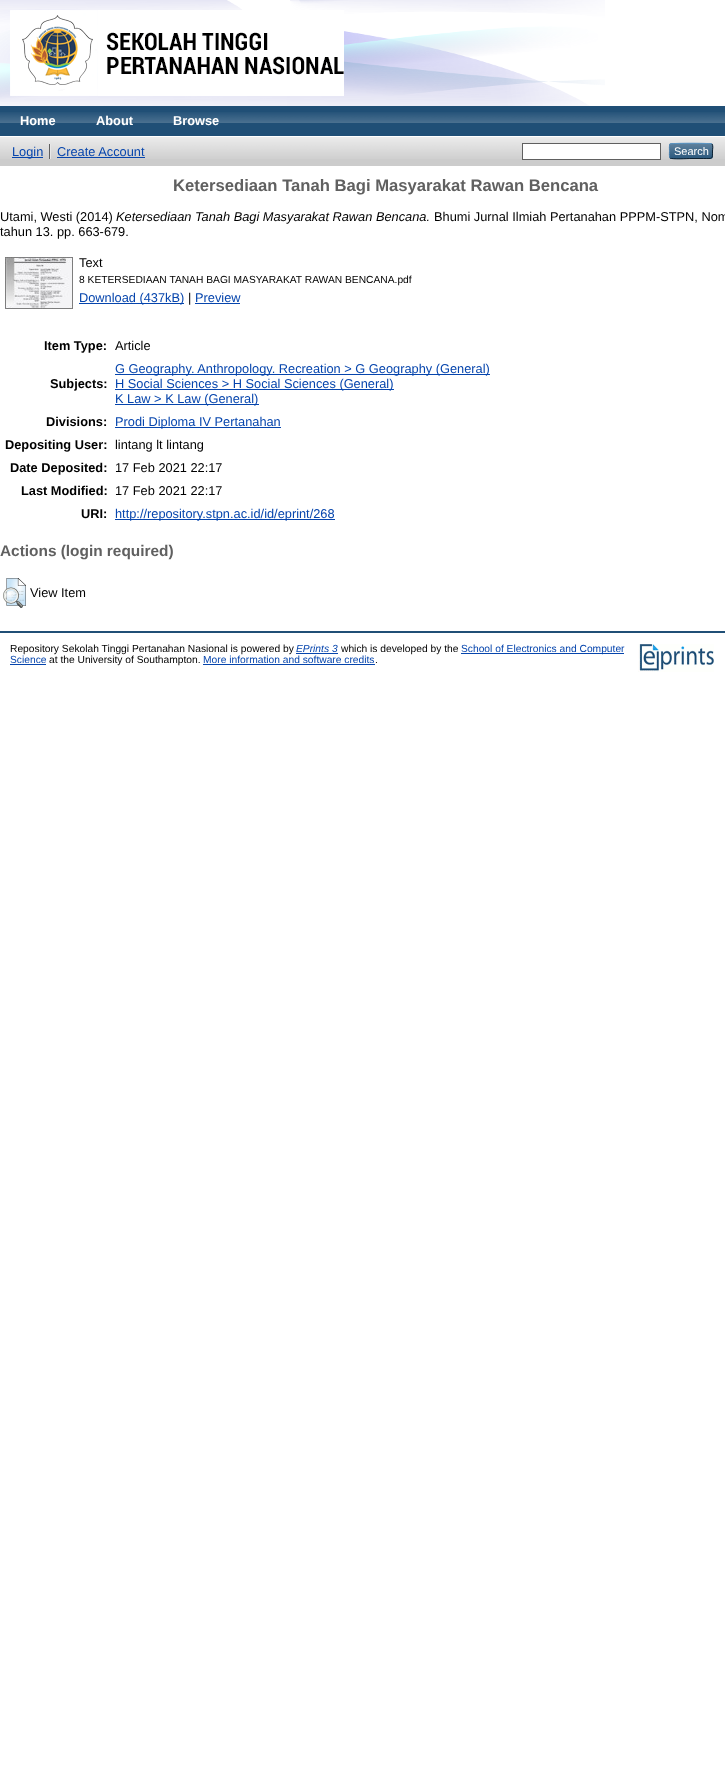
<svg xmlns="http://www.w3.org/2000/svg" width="725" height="1791">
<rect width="100%" height="100%" fill="#fff"/>
<image x="0" y="0" width="605" height="106" href="media/1.png"/>
<image x="10" y="10" width="334" height="86" href="media/2.png"/>
<rect y="106" width="725" height="30" fill="#204f76"/>
<image x="0" y="112" width="725" height="11" href="media/3.png"/>
<text x="20" y="125" style="font-family:Liberation Sans;font-size:12.8px;font-weight:bold;fill:#fff">Home</text>
<text x="96" y="125" style="font-family:Liberation Sans;font-size:12.8px;font-weight:bold;fill:#fff">About</text>
<text x="173" y="125" style="font-family:Liberation Sans;font-size:12.8px;font-weight:bold;fill:#fff">Browse</text>
<rect y="137" width="725" height="29" fill="#ccc"/>
<image x="0" y="137" width="725" height="22" href="media/4.png"/>
<rect x="12" y="157" width="31" height="1" fill="#0645ad"/>
<text x="12" y="156" style="font-family:Liberation Sans;font-size:12.8px;fill:#0645ad">Login</text>
<rect x="49" y="144" width="1" height="15" fill="#606060"/>
<text x="57" y="156" style="font-family:Liberation Sans;font-size:12.8px;fill:#0645ad">Create Account</text>
<rect x="50" y="144" width="1" height="15" fill="#e8e8e8"/>
<rect x="57" y="157" width="88" height="1" fill="#0645ad"/>
<rect x="522.5" y="143.5" width="138" height="16" fill="#fff" stroke="#606060"/>
<rect x="669" y="143" width="44" height="16" rx="3" fill="#1f4f76"/>
<image x="669" y="143" width="44" height="16" href="media/5.png"/>
<path d="M670 144c1.5-1 40.5-1 42 0" fill="none" stroke="#5b97c7"/>
<path d="M712 144c1.5 2 .5 5 .5 7c0 8.5 .5 7.5-9 7.5h-12.5c-3 0-19 1-21-.5" fill="none" stroke="#0d2131"/>
<path d="M670 158c-1-1.5-.5-5.5-.5-7c0-1.5-.5-5.5 .5-7" fill="none" stroke="#5287b3"/>
<text x="674" y="155" style="font-family:Liberation Sans;font-size:11px;fill:#fff">Search</text>
<text x="173" y="191" style="font-family:Liberation Sans;font-size:16.65px;font-weight:bold;fill:#606060">Ketersediaan Tanah Bagi Masyarakat Rawan Bencana</text>
<text x="0" y="221" style="font-family:Liberation Sans;font-size:12.8px;fill:#000">Utami, Westi (2014)</text>
<text x="116" y="221" style="font-family:Liberation Sans;font-size:12.8px;font-style:italic;fill:#000">Ketersediaan Tanah Bagi Masyarakat Rawan Bencana.</text>
<text x="434" y="221" style="font-family:Liberation Sans;font-size:12.8px;fill:#000">Bhumi Jurnal Ilmiah Pertanahan PPPM-STPN, Nom</text>
<text x="0" y="236" style="font-family:Liberation Sans;font-size:12.8px;fill:#000">tahun 13. pp. 663-679.</text>
<image x="5" y="257" width="68" height="52" href="media/6.png"/>
<text x="79" y="267" style="font-family:Liberation Sans;font-size:12.8px;fill:#000">Text</text>
<text x="79" y="283" style="font-family:Liberation Sans;font-size:10.25px;fill:#000">8 KETERSEDIAAN TANAH BAGI MASYARAKAT RAWAN BENCANA.pdf</text>
<rect x="79" y="303" width="105" height="1" fill="#0645ad"/>
<text x="79" y="302" style="font-family:Liberation Sans;font-size:12.8px;fill:#0645ad">Download (437kB)</text>
<text x="188" y="302" style="font-family:Liberation Sans;font-size:12.8px;fill:#000">|</text>
<text x="195" y="302" style="font-family:Liberation Sans;font-size:12.8px;fill:#0645ad">Preview</text>
<rect x="195" y="303" width="45" height="1" fill="#0645ad"/>
<text x="44" y="350" style="font-family:Liberation Sans;font-size:12.8px;font-weight:bold;fill:#000">Item Type:</text>
<text x="115" y="350" style="font-family:Liberation Sans;font-size:12.8px;fill:#000">Article</text>
<text x="50" y="388" style="font-family:Liberation Sans;font-size:12.8px;font-weight:bold;fill:#000">Subjects:</text>
<rect x="115" y="374" width="375" height="1" fill="#0645ad"/>
<text x="115" y="373" style="font-family:Liberation Sans;font-size:12.8px;fill:#0645ad">G Geography. Anthropology. Recreation &gt; G Geography (General)</text>
<rect x="115" y="389" width="279" height="1" fill="#0645ad"/>
<text x="115" y="388" style="font-family:Liberation Sans;font-size:12.8px;fill:#0645ad">H Social Sciences &gt; H Social Sciences (General)</text>
<rect x="115" y="404" width="144" height="1" fill="#0645ad"/>
<text x="115" y="403" style="font-family:Liberation Sans;font-size:12.8px;fill:#0645ad">K Law &gt; K Law (General)</text>
<text x="46" y="426" style="font-family:Liberation Sans;font-size:12.8px;font-weight:bold;fill:#000">Divisions:</text>
<rect x="115" y="427" width="166" height="1" fill="#0645ad"/>
<text x="115" y="426" style="font-family:Liberation Sans;font-size:12.8px;fill:#0645ad">Prodi Diploma IV Pertanahan</text>
<text x="5" y="449" style="font-family:Liberation Sans;font-size:12.8px;font-weight:bold;fill:#000">Depositing User:</text>
<text x="115" y="449" style="font-family:Liberation Sans;font-size:12.8px;fill:#000">lintang lt lintang</text>
<text x="10" y="472" style="font-family:Liberation Sans;font-size:12.8px;font-weight:bold;fill:#000">Date Deposited:</text>
<text x="115" y="472" style="font-family:Liberation Sans;font-size:12.8px;fill:#000">17 Feb 2021 22:17</text>
<text x="21" y="495" style="font-family:Liberation Sans;font-size:12.8px;font-weight:bold;fill:#000">Last Modified:</text>
<text x="115" y="495" style="font-family:Liberation Sans;font-size:12.8px;fill:#000">17 Feb 2021 22:17</text>
<text x="81" y="518" style="font-family:Liberation Sans;font-size:12.8px;font-weight:bold;fill:#000">URI:</text>
<rect x="115" y="519" width="220" height="1" fill="#0645ad"/>
<text x="115" y="518" style="font-family:Liberation Sans;font-size:12.8px;fill:#0645ad">http://repository.stpn.ac.id/id/eprint/268</text>
<text x="0" y="556" style="font-family:Liberation Sans;font-size:15.4px;font-weight:bold;fill:#606060">Actions (login required)</text>
<image x="3" y="578" width="23" height="30" href="media/7.png"/>
<text x="30" y="597" style="font-family:Liberation Sans;font-size:12.8px;fill:#000">View Item</text>
<rect y="631" width="725" height="2" fill="#204f76"/>
<text x="10" y="652" style="font-family:Liberation Sans;font-size:10.25px;fill:#000">Repository Sekolah Tinggi Pertanahan Nasional is powered by</text>
<text x="296" y="652" style="font-family:Liberation Sans;font-size:10.25px;font-style:italic;fill:#0645ad">EPrints 3</text>
<rect x="296" y="653" width="42" height="1" fill="#0645ad"/>
<text x="341" y="652" style="font-family:Liberation Sans;font-size:10.25px;fill:#000">which is developed by the</text>
<rect x="461" y="653" width="163" height="1" fill="#0645ad"/>
<text x="461" y="652" style="font-family:Liberation Sans;font-size:10.25px;fill:#0645ad">School of Electronics and Computer</text>
<text x="10" y="663" style="font-family:Liberation Sans;font-size:10.25px;fill:#0645ad">Science</text>
<rect x="10" y="664" width="36" height="1" fill="#0645ad"/>
<text x="49" y="663" style="font-family:Liberation Sans;font-size:10.25px;fill:#000">at the University of Southampton.</text>
<text x="203" y="663" style="font-family:Liberation Sans;font-size:10.25px;fill:#0645ad">More information and software credits</text>
<rect x="203" y="664" width="172" height="1" fill="#0645ad"/>
<text x="375" y="663" style="font-family:Liberation Sans;font-size:10.25px;fill:#000">.</text>
<image x="638" y="644" width="76" height="28" href="media/8.png"/>
</svg>
